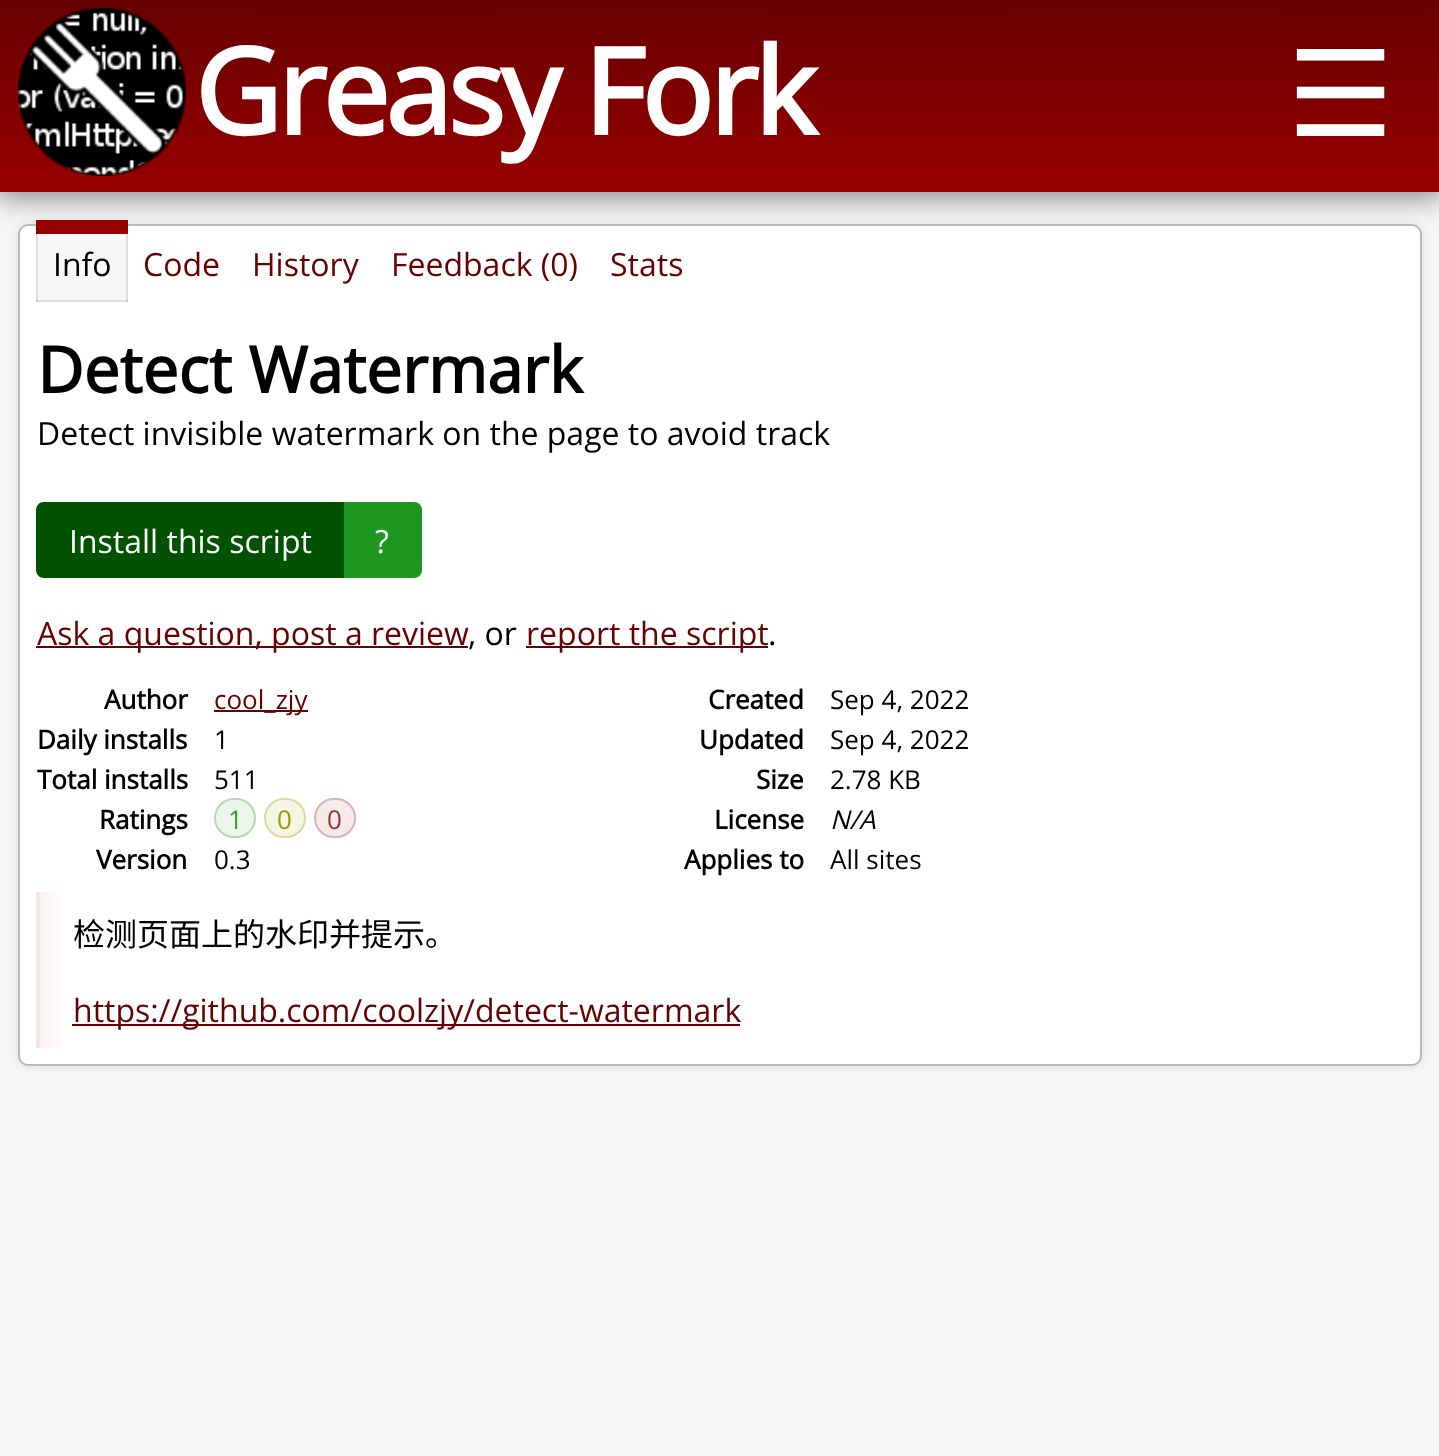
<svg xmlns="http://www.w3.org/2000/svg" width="1439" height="1456">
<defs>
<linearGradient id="g1" gradientUnits="userSpaceOnUse" x1="720" y1="0" x2="720" y2="192"><stop offset="0" stop-color="#670000"/><stop offset="1" stop-color="#900"/></linearGradient>
<linearGradient id="g2" gradientUnits="userSpaceOnUse" x1="40" y1="970" x2="1404" y2="970"><stop offset="0" stop-color="#fcf1f1"/><stop offset="0.02" stop-color="#fff"/></linearGradient>
</defs>
<rect width="100%" height="100%" fill="#f6f6f6"/>
<rect x="-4" y="-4" width="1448" height="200" fill="#00000080" filter="blur(15px)"/>
<rect width="1439" height="192" fill="url(#g1)"/>
<image x="18" y="8" width="168" height="168" href="media/1.png"/>
<text x="194" y="135" style="font-family:Open Sans;font-size:119.5px;font-weight:bold;letter-spacing:-4px;fill:#fff">Greasy Fork</text>
<text x="1287" y="136" style="font-family:DejaVu Sans;font-size:119.5px;fill:#fff">☰</text>
<rect x="18" y="224" width="1404" height="842" rx="10" fill="#ddd" filter="blur(5px)"/>
<rect x="19" y="225" width="1402" height="840" rx="9" fill="#fff" stroke="#bbb" stroke-width="2"/>
<rect x="36" y="234" width="92" height="66" fill="#00000008"/>
<rect x="36" y="300" width="92" height="2" fill="#dfdfdf"/>
<rect x="126" y="234" width="2" height="68" fill="#0000001a"/>
<rect x="36" y="234" width="2" height="68" fill="#0000001a"/>
<rect x="36" y="220" width="92" height="14" fill="#900"/>
<text x="53" y="276" style="font-family:Open Sans;font-size:32px;fill:#000">Info</text>
<text x="143" y="276" style="font-family:Open Sans;font-size:32px;fill:#670000">Code</text>
<text x="252" y="276" style="font-family:Open Sans;font-size:32px;fill:#670000">History</text>
<text x="391" y="276" style="font-family:Open Sans;font-size:32px;fill:#670000">Feedback (0)</text>
<text x="610" y="276" style="font-family:Open Sans;font-size:32px;fill:#670000">Stats</text>
<text x="37" y="393" style="font-family:Open Sans;font-size:64px;font-weight:bold;fill:#000">Detect Watermark</text>
<text x="37" y="445" style="font-family:Open Sans;font-size:32px;fill:#000">Detect invisible watermark on the page to avoid track</text>
<path d="M44 502h300v76h-300c-4.5 0-8-3.5-8-8v-60c0-4.5 3.5-8 8-8z" fill="#005200"/>
<text x="69" y="553" style="font-family:Open Sans;font-size:32px;fill:#fff">Install this script</text>
<path d="M344 502h70c4.5 0 8 3.5 8 8v60c0 4.5-3.5 8-8 8h-70z" fill="#1e971e"/>
<text x="375" y="553" style="font-family:Open Sans;font-size:32px;fill:#fff">?</text>
<rect x="36" y="646" width="432" height="2" fill="#670000"/>
<text x="37" y="645" style="font-family:Open Sans;font-size:32px;fill:#670000">Ask a question, post a review</text>
<text x="468" y="645" style="font-family:Open Sans;font-size:32px;fill:#000">, or</text>
<rect x="526" y="646" width="242" height="2" fill="#670000"/>
<text x="526" y="645" style="font-family:Open Sans;font-size:32px;fill:#670000">report the script</text>
<text x="768" y="645" style="font-family:Open Sans;font-size:32px;fill:#000">.</text>
<text x="104" y="709" style="font-family:Open Sans;font-size:26px;font-weight:bold;fill:#000">Author</text>
<rect x="214" y="710" width="94" height="2" fill="#670000"/>
<text x="214" y="709" style="font-family:Open Sans;font-size:26px;fill:#670000">cool_zjy</text>
<text x="708" y="709" style="font-family:Open Sans;font-size:26px;font-weight:bold;fill:#000">Created</text>
<text x="830" y="709" style="font-family:Open Sans;font-size:26px;fill:#000">Sep 4, 2022</text>
<text x="37" y="749" style="font-family:Open Sans;font-size:26px;font-weight:bold;fill:#000">Daily installs</text>
<text x="214" y="749" style="font-family:Open Sans;font-size:26px;fill:#000">1</text>
<text x="699" y="749" style="font-family:Open Sans;font-size:26px;font-weight:bold;fill:#000">Updated</text>
<text x="830" y="749" style="font-family:Open Sans;font-size:26px;fill:#000">Sep 4, 2022</text>
<text x="37" y="789" style="font-family:Open Sans;font-size:26px;font-weight:bold;fill:#000">Total installs</text>
<text x="214" y="789" style="font-family:Open Sans;font-size:26px;fill:#000">511</text>
<text x="756" y="789" style="font-family:Open Sans;font-size:26px;font-weight:bold;fill:#000">Size</text>
<text x="830" y="789" style="font-family:Open Sans;font-size:26px;fill:#000">2.78 KB</text>
<text x="99" y="829" style="font-family:Open Sans;font-size:26px;font-weight:bold;fill:#000">Ratings</text>
<rect x="214" y="798" width="42" height="40" rx="20" fill="#ebf5eb"/>
<rect x="215" y="799" width="40" height="38" rx="19" fill="none" stroke="#339b334d" stroke-width="2"/>
<text x="228" y="829" style="font-family:Open Sans;font-size:26px;fill:#339b33">1</text>
<rect x="264" y="798" width="42" height="40" rx="20" fill="#f5f5e6"/>
<rect x="265" y="799" width="40" height="38" rx="19" fill="none" stroke="#9b9b004d" stroke-width="2"/>
<text x="277" y="829" style="font-family:Open Sans;font-size:26px;fill:#9b9b00">0</text>
<rect x="314" y="798" width="42" height="40" rx="20" fill="#f5ebeb"/>
<rect x="315" y="799" width="40" height="38" rx="19" fill="none" stroke="#9b33334d" stroke-width="2"/>
<text x="327" y="829" style="font-family:Open Sans;font-size:26px;fill:#9b3333">0</text>
<text x="714" y="829" style="font-family:Open Sans;font-size:26px;font-weight:bold;fill:#000">License</text>
<text x="830" y="829" style="font-family:Open Sans;font-size:26px;font-style:italic;fill:#000">N/A</text>
<text x="96" y="869" style="font-family:Open Sans;font-size:26px;font-weight:bold;fill:#000">Version</text>
<text x="214" y="869" style="font-family:Open Sans;font-size:26px;fill:#000">0.3</text>
<text x="684" y="869" style="font-family:Open Sans;font-size:26px;font-weight:bold;fill:#000">Applies to</text>
<text x="830" y="869" style="font-family:Open Sans;font-size:26px;fill:#000">All sites</text>
<rect x="40" y="892" width="22" height="156" fill="url(#g2)"/>
<rect x="36" y="892" width="4" height="156" fill="#f2e5e5"/>
<text x="73" y="946" style="font-family:Noto Sans CJK SC;font-size:32px;fill:#000">检测页面上的水印并提示。</text>
<rect x="72" y="1024" width="668" height="2" fill="#670000"/>
<text x="73" y="1022" style="font-family:Open Sans;font-size:32px;fill:#670000">https://github.com/coolzjy/detect-watermark</text>
</svg>
